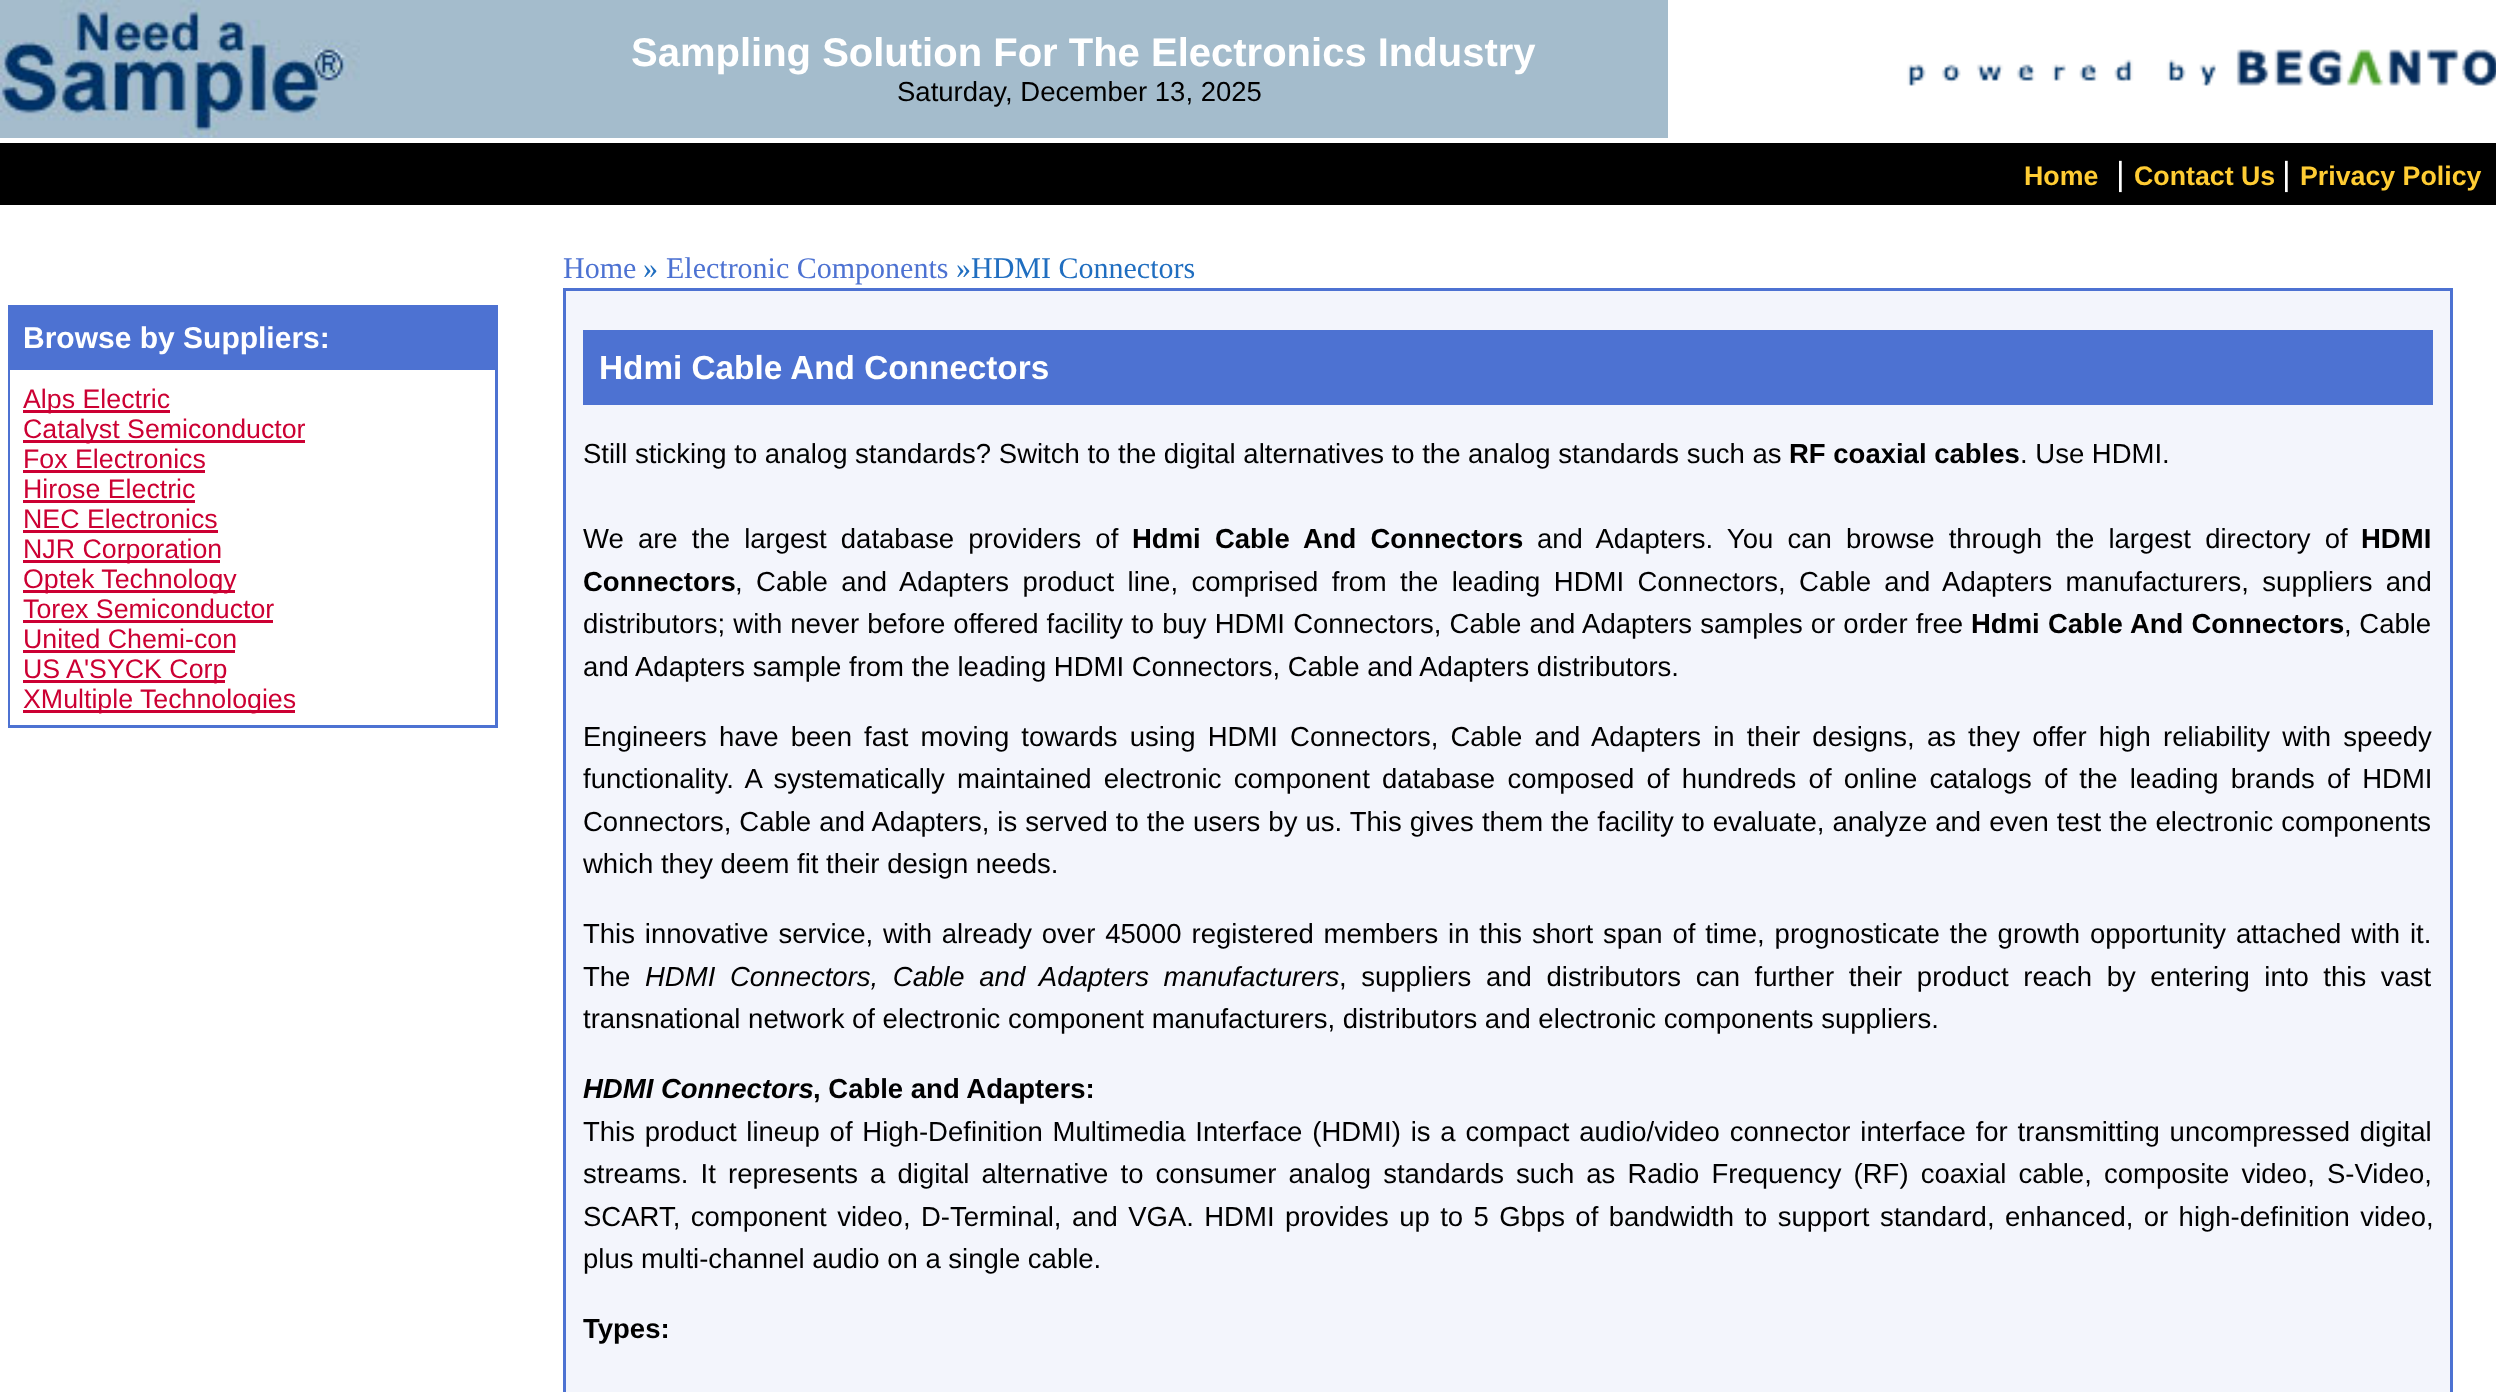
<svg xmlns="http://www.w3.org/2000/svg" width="2496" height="1392">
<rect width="100%" height="100%" fill="#fff"/>
<rect width="1668" height="138" fill="#a4bccc"/>
<image x="0" y="0" width="360" height="138" href="media/1.png"/>
<text x="631" y="66" style="font-family:Liberation Sans;font-size:40px;font-weight:bold;fill:#fff">Sampling Solution For The Electronics Industry</text>
<text x="897" y="101" style="font-family:Liberation Sans;font-size:27.5px;fill:#000">Saturday, December 13, 2025</text>
<image x="1907" y="49" width="589" height="37" href="media/2.png"/>
<rect y="143" width="2496" height="62" fill="#000"/>
<text x="2024" y="185" style="font-family:Liberation Sans;font-size:26.75px;font-weight:bold;fill:#fc3">Home</text>
<text x="2116" y="185" style="font-family:Liberation Sans;font-size:33.3px;fill:#fff">|</text>
<text x="2134" y="185" style="font-family:Liberation Sans;font-size:26.75px;font-weight:bold;fill:#fc3">Contact Us</text>
<text x="2282" y="185" style="font-family:Liberation Sans;font-size:33.3px;fill:#fff">|</text>
<text x="2300" y="185" style="font-family:Liberation Sans;font-size:26.75px;font-weight:bold;fill:#fc3">Privacy Policy</text>
<rect x="8" y="305" width="490" height="423" fill="#4d72d2"/>
<text x="23" y="348" style="font-family:Liberation Sans;font-size:30px;font-weight:bold;fill:#fff">Browse by Suppliers:</text>
<rect x="10" y="370" width="485" height="355" fill="#fff"/>
<rect x="23" y="410" width="147" height="3" fill="#c03"/>
<text x="23" y="408" style="font-family:Liberation Sans;font-size:26.75px;fill:#c03">Alps Electric</text>
<rect x="23" y="440" width="282" height="3" fill="#c03"/>
<text x="23" y="438" style="font-family:Liberation Sans;font-size:26.75px;fill:#c03">Catalyst Semiconductor</text>
<text x="23" y="468" style="font-family:Liberation Sans;font-size:26.75px;fill:#c03">Fox Electronics</text>
<rect x="23" y="470" width="182" height="3" fill="#c03"/>
<text x="23" y="498" style="font-family:Liberation Sans;font-size:26.75px;fill:#c03">Hirose Electric</text>
<rect x="23" y="500" width="172" height="3" fill="#c03"/>
<text x="23" y="528" style="font-family:Liberation Sans;font-size:26.75px;fill:#c03">NEC Electronics</text>
<rect x="23" y="530" width="195" height="3" fill="#c03"/>
<rect x="23" y="560" width="197" height="3" fill="#c03"/>
<text x="23" y="558" style="font-family:Liberation Sans;font-size:26.75px;fill:#c03">NJR Corporation</text>
<rect x="23" y="590" width="212" height="3" fill="#c03"/>
<text x="23" y="588" style="font-family:Liberation Sans;font-size:26.75px;fill:#c03">Optek Technology</text>
<text x="23" y="618" style="font-family:Liberation Sans;font-size:26.75px;fill:#c03">Torex Semiconductor</text>
<rect x="23" y="620" width="250" height="3" fill="#c03"/>
<text x="23" y="648" style="font-family:Liberation Sans;font-size:26.75px;fill:#c03">United Chemi-con</text>
<rect x="23" y="650" width="212" height="3" fill="#c03"/>
<rect x="23" y="680" width="202" height="3" fill="#c03"/>
<text x="23" y="678" style="font-family:Liberation Sans;font-size:26.75px;fill:#c03">US A'SYCK Corp</text>
<rect x="23" y="710" width="272" height="3" fill="#c03"/>
<text x="23" y="708" style="font-family:Liberation Sans;font-size:26.75px;fill:#c03">XMultiple Technologies</text>
<text x="563" y="278" style="font-family:Liberation Serif;font-size:30px;fill:#4d72d2">Home</text>
<text x="643" y="278" style="font-family:Liberation Serif;font-size:30px;fill:#206ec0">»</text>
<text x="666" y="278" style="font-family:Liberation Serif;font-size:30px;fill:#4d72d2">Electronic Components</text>
<text x="956" y="278" style="font-family:Liberation Serif;font-size:30px;fill:#206ec0">»HDMI Connectors</text>
<rect x="564.5" y="289.5" width="1887" height="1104" fill="#f3f5fc" stroke="#4d72d2" stroke-width="3"/>
<rect x="583" y="330" width="1850" height="75" fill="#4d72d2"/>
<text x="599" y="379" style="font-family:Liberation Sans;font-size:33.3px;font-weight:bold;fill:#fff">Hdmi Cable And Connectors</text>
<text x="583" y="463" style="font-family:Liberation Sans;font-size:27.5px;fill:#000">Still sticking to analog standards? Switch to the digital alternatives to the analog standards such as</text>
<text x="1789" y="463" style="font-family:Liberation Sans;font-size:27.5px;font-weight:bold;fill:#000">RF coaxial cables</text>
<text x="2020" y="463" style="font-family:Liberation Sans;font-size:27.5px;fill:#000">. Use HDMI.</text>
<text x="583" y="548" word-spacing="6.5" style="font-family:Liberation Sans;font-size:27.5px;fill:#000">We are the largest database providers of</text>
<text x="1132" y="548" word-spacing="6.5" style="font-family:Liberation Sans;font-size:27.5px;font-weight:bold;fill:#000">Hdmi Cable And Connectors</text>
<text x="1537" y="548" word-spacing="6.5" style="font-family:Liberation Sans;font-size:27.5px;fill:#000">and Adapters. You can browse through the largest directory of</text>
<text x="2361" y="548" style="font-family:Liberation Sans;font-size:27.5px;font-weight:bold;fill:#000">HDMI</text>
<text x="583" y="591" style="font-family:Liberation Sans;font-size:27.5px;font-weight:bold;fill:#000">Connectors</text>
<text x="735" y="591" word-spacing="5.75" style="font-family:Liberation Sans;font-size:27.5px;fill:#000">, Cable and Adapters product line, comprised from the leading HDMI Connectors, Cable and Adapters manufacturers, suppliers and</text>
<text x="583" y="633" word-spacing="0.5" style="font-family:Liberation Sans;font-size:27.5px;fill:#000">distributors; with never before offered facility to buy HDMI Connectors, Cable and Adapters samples or order free</text>
<text x="1971" y="633" word-spacing="0.5" style="font-family:Liberation Sans;font-size:27.5px;font-weight:bold;fill:#000">Hdmi Cable And Connectors</text>
<text x="2344" y="633" style="font-family:Liberation Sans;font-size:27.5px;fill:#000">, Cable</text>
<text x="583" y="676" style="font-family:Liberation Sans;font-size:27.5px;fill:#000">and Adapters sample from the leading HDMI Connectors, Cable and Adapters distributors.</text>
<text x="583" y="746" word-spacing="4.5" style="font-family:Liberation Sans;font-size:27.5px;fill:#000">Engineers have been fast moving towards using HDMI Connectors, Cable and Adapters in their designs, as they offer high reliability with speedy</text>
<text x="583" y="788" word-spacing="4.6" style="font-family:Liberation Sans;font-size:27.5px;fill:#000">functionality. A systematically maintained electronic component database composed of hundreds of online catalogs of the leading brands of HDMI</text>
<text x="583" y="831" word-spacing="0.4" style="font-family:Liberation Sans;font-size:27.5px;fill:#000">Connectors, Cable and Adapters, is served to the users by us. This gives them the facility to evaluate, analyze and even test the electronic components</text>
<text x="583" y="873" style="font-family:Liberation Sans;font-size:27.5px;fill:#000">which they deem fit their design needs.</text>
<text x="583" y="943" word-spacing="2.2" style="font-family:Liberation Sans;font-size:27.5px;fill:#000">This innovative service, with already over 45000 registered members in this short span of time, prognosticate the growth opportunity attached with it.</text>
<text x="583" y="986" style="font-family:Liberation Sans;font-size:27.5px;fill:#000">The</text>
<text x="645" y="986" word-spacing="7" style="font-family:Liberation Sans;font-size:27.5px;font-style:italic;fill:#000">HDMI Connectors, Cable and Adapters manufacturers</text>
<text x="1339" y="986" word-spacing="7" style="font-family:Liberation Sans;font-size:27.5px;fill:#000">, suppliers and distributors can further their product reach by entering into this vast</text>
<text x="583" y="1028" style="font-family:Liberation Sans;font-size:27.5px;fill:#000">transnational network of electronic component manufacturers, distributors and electronic components suppliers.</text>
<text x="583" y="1098" style="font-family:Liberation Sans;font-size:27.5px;font-weight:bold;font-style:italic;fill:#000">HDMI Connectors</text>
<text x="813" y="1098" style="font-family:Liberation Sans;font-size:27.5px;font-weight:bold;fill:#000">, Cable and Adapters:</text>
<text x="583" y="1141" word-spacing="2.2" style="font-family:Liberation Sans;font-size:27.5px;fill:#000">This product lineup of High-Definition Multimedia Interface (HDMI) is a compact audio/video connector interface for transmitting uncompressed digital</text>
<text x="583" y="1183" word-spacing="4.5" style="font-family:Liberation Sans;font-size:27.5px;fill:#000">streams. It represents a digital alternative to consumer analog standards such as Radio Frequency (RF) coaxial cable, composite video, S-Video,</text>
<text x="583" y="1226" word-spacing="2.75" style="font-family:Liberation Sans;font-size:27.5px;fill:#000">SCART, component video, D-Terminal, and VGA. HDMI provides up to 5 Gbps of bandwidth to support standard, enhanced, or high-definition video,</text>
<text x="583" y="1268" style="font-family:Liberation Sans;font-size:27.5px;fill:#000">plus multi-channel audio on a single cable.</text>
<text x="583" y="1338" style="font-family:Liberation Sans;font-size:27.5px;font-weight:bold;fill:#000">Types:</text>
</svg>
